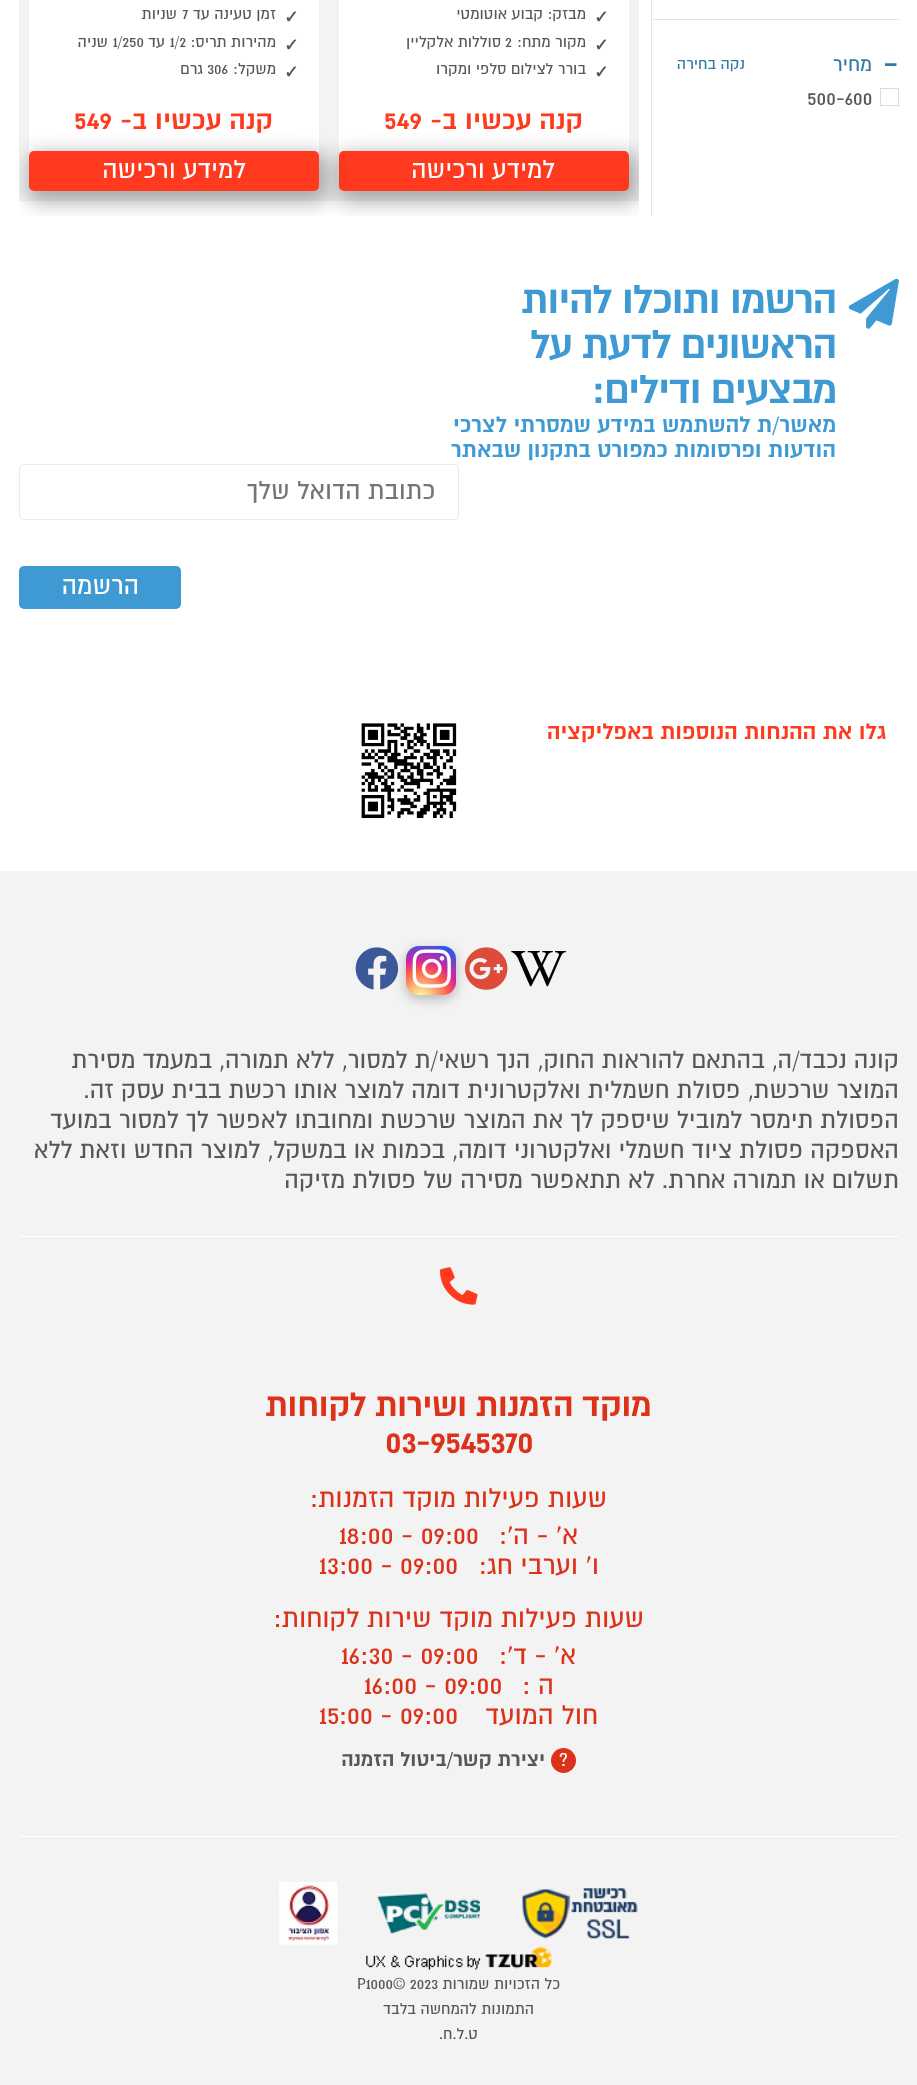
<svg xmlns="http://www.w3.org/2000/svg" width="917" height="2085">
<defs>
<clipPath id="clip1"><rect x="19" y="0" width="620" height="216"/></clipPath>
<radialGradient id="g1" gradientUnits="userSpaceOnUse" cx="421" cy="998" r="63"><stop offset="0" stop-color="#fdf497"/><stop offset="0.05" stop-color="#fdf497"/><stop offset="0.45" stop-color="#fd5949"/><stop offset="0.6" stop-color="#d6249f"/><stop offset="0.9" stop-color="#285aeb"/></radialGradient>
</defs>
<rect width="100%" height="100%" fill="#fff"/>
<rect x="653" y="19" width="246" height="1" fill="#e4e4e4"/>
<text x="883" y="75" style="font-family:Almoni;font-size:40px;fill:#3279a6">-</text>
<text x="872" y="71" style="font-family:Almoni;font-size:22.5px;direction:rtl;fill:#3279a6">מחיר</text>
<text x="745" y="69" style="font-family:Almoni;font-size:17.5px;direction:rtl;fill:#3279a6">נקה בחירה</text>
<rect x="880.5" y="88.5" width="18" height="17" fill="none" stroke="#dcdcdc"/>
<text x="807" y="105" style="font-family:Almoni;font-size:22.5px;fill:#565757">500-600</text>
<rect x="651" width="1" height="216" fill="#e4e4e4"/>
<rect x="19" width="620" height="201" fill="#f3f3f3"/>
<rect x="339" y="-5" width="290" height="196" rx="5" fill="#fff"/>
<text x="594" y="23" style="font-family:DejaVu Sans;font-size:17.5px;font-weight:bold;fill:#565757">✓</text>
<text x="586" y="19" style="font-family:Almoni;font-size:17.5px;direction:rtl;fill:#565757">מבזק: קבוע אוטומטי</text>
<text x="594" y="51" style="font-family:DejaVu Sans;font-size:17.5px;font-weight:bold;fill:#565757">✓</text>
<text x="586" y="47" style="font-family:Almoni;font-size:17.5px;direction:rtl;fill:#565757">מקור מתח:</text>
<text x="505" y="47" style="font-family:Almoni;font-size:17.5px;fill:#565757">2</text>
<text x="501" y="47" style="font-family:Almoni;font-size:17.5px;direction:rtl;fill:#565757">סוללות אלקליין</text>
<text x="594" y="78" style="font-family:DejaVu Sans;font-size:17.5px;font-weight:bold;fill:#565757">✓</text>
<text x="586" y="74" style="font-family:Almoni;font-size:17.5px;direction:rtl;fill:#565757">בורר לצילום סלפי ומקרו</text>
<g clip-path="url(#clip1)">
<rect x="338" y="153" width="300" height="50" rx="10" fill="#0000004d" filter="blur(9.5px)"/>
</g>
<text x="583" y="129" style="font-family:Almoni;font-size:30px;font-weight:bold;direction:rtl;fill:#ff3a1e">קנה עכשיו ב-</text>
<text x="384" y="129" style="font-family:Almoni;font-size:30px;font-weight:bold;fill:#ff3a1e">549</text>
<rect x="339" y="151" width="290" height="40" rx="5" fill="#ff3a1e"/>
<text x="555" y="178" style="font-family:Almoni;font-size:28.75px;direction:rtl;fill:#fff">למידע ורכישה</text>
<rect x="29" y="-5" width="290" height="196" rx="5" fill="#fff"/>
<text x="284" y="23" style="font-family:DejaVu Sans;font-size:17.5px;font-weight:bold;fill:#565757">✓</text>
<text x="276" y="19" style="font-family:Almoni;font-size:17.5px;direction:rtl;fill:#565757">זמן טעינה עד</text>
<text x="182" y="19" style="font-family:Almoni;font-size:17.5px;fill:#565757">7</text>
<text x="177" y="19" style="font-family:Almoni;font-size:17.5px;direction:rtl;fill:#565757">שניות</text>
<text x="284" y="51" style="font-family:DejaVu Sans;font-size:17.5px;font-weight:bold;fill:#565757">✓</text>
<text x="276" y="47" style="font-family:Almoni;font-size:17.5px;direction:rtl;fill:#565757">מהירות תריס:</text>
<text x="170" y="47" style="font-family:Almoni;font-size:17.5px;fill:#565757">1/2</text>
<text x="165" y="47" style="font-family:Almoni;font-size:17.5px;direction:rtl;fill:#565757">עד</text>
<text x="113" y="47" style="font-family:Almoni;font-size:17.5px;fill:#565757">1/250</text>
<text x="108" y="47" style="font-family:Almoni;font-size:17.5px;direction:rtl;fill:#565757">שניה</text>
<text x="284" y="78" style="font-family:DejaVu Sans;font-size:17.5px;font-weight:bold;fill:#565757">✓</text>
<text x="276" y="74" style="font-family:Almoni;font-size:17.5px;direction:rtl;fill:#565757">משקל:</text>
<text x="207" y="74" style="font-family:Almoni;font-size:17.5px;fill:#565757">306</text>
<text x="203" y="74" style="font-family:Almoni;font-size:17.5px;direction:rtl;fill:#565757">גרם</text>
<g clip-path="url(#clip1)">
<rect x="28" y="153" width="300" height="50" rx="10" fill="#0000004d" filter="blur(9.5px)"/>
</g>
<text x="273" y="129" style="font-family:Almoni;font-size:30px;font-weight:bold;direction:rtl;fill:#ff3a1e">קנה עכשיו ב-</text>
<text x="74" y="129" style="font-family:Almoni;font-size:30px;font-weight:bold;fill:#ff3a1e">549</text>
<rect x="29" y="151" width="290" height="40" rx="5" fill="#ff3a1e"/>
<text x="246" y="178" style="font-family:Almoni;font-size:28.75px;direction:rtl;fill:#fff">למידע ורכישה</text>
<image x="848" y="278" width="51" height="51" href="media/1.png"/>
<text x="836" y="313" style="font-family:Almoni;font-size:45px;font-weight:bold;letter-spacing:-1.25px;direction:rtl;fill:#3f9ad3">הרשמו ותוכלו להיות</text>
<text x="836" y="358" style="font-family:Almoni;font-size:45px;font-weight:bold;letter-spacing:-1.25px;direction:rtl;fill:#3f9ad3">הראשונים לדעת על</text>
<text x="836" y="403" style="font-family:Almoni;font-size:45px;font-weight:bold;letter-spacing:-1.25px;direction:rtl;fill:#3f9ad3">מבצעים ודילים:</text>
<text x="836" y="432" style="font-family:Almoni;font-size:25px;font-weight:bold;direction:rtl;fill:#3f9ad3">מאשר/ת להשתמש במידע שמסרתי לצרכי</text>
<text x="836" y="457" style="font-family:Almoni;font-size:25px;font-weight:bold;direction:rtl;fill:#3f9ad3">הודעות ופרסומות כמפורט בתקנון שבאתר</text>
<rect x="19.5" y="464.5" width="439" height="55" rx="4.5" fill="none" stroke="#eaeaea"/>
<text x="435" y="499" style="font-family:Almoni;font-size:28.75px;direction:rtl;fill:#757575">כתובת הדואל שלך</text>
<rect x="19" y="566" width="162" height="43" rx="5" fill="#3f9ad3"/>
<text x="139" y="594" style="font-family:Almoni;font-size:28.75px;direction:rtl;fill:#fff">הרשמה</text>
<text x="886" y="739" style="font-family:Almoni;font-size:25px;font-weight:bold;direction:rtl;fill:#ff3a1e">גלו את ההנחות הנוספות באפליקציה</text>
<image x="361" y="723" width="96" height="96" href="media/2.png"/>
<rect y="871" width="917" height="1214" fill="#f3f3f3"/>
<rect x="19" y="1236" width="880" height="1" fill="#fff"/>
<text x="899" y="1068" style="font-family:Almoni;font-size:27.5px;direction:rtl;fill:#565757">קונה נכבד/ה, בהתאם להוראות החוק, הנך רשאי/ת למסור, ללא תמורה, במעמד מסירת</text>
<text x="899" y="1098" style="font-family:Almoni;font-size:27.5px;direction:rtl;fill:#565757">המוצר שרכשת, פסולת חשמלית ואלקטרונית דומה למוצר אותו רכשת בבית עסק זה.</text>
<text x="899" y="1128" style="font-family:Almoni;font-size:27.5px;direction:rtl;fill:#565757">הפסולת תימסר למוביל שיספק לך את המוצר שרכשת ומחובתו לאפשר לך למסור במועד</text>
<text x="899" y="1158" style="font-family:Almoni;font-size:27.5px;direction:rtl;fill:#565757">האספקה פסולת ציוד חשמלי ואלקטרוני דומה, בכמות או במשקל, למוצר החדש וזאת ללא</text>
<text x="899" y="1188" style="font-family:Almoni;font-size:27.5px;direction:rtl;fill:#565757">תשלום או תמורה אחרת. לא תתאפשר מסירה של פסולת מזיקה</text>
<image x="511" y="951" width="56" height="36" href="media/3.png"/>
<image x="355" y="947" width="44" height="43" href="media/6.png"/>
<rect x="406" y="950" width="50" height="49" rx="13" fill="#00000040" filter="blur(6px)"/>
<image x="465" y="947" width="43" height="43" href="media/4.png"/>
<rect x="406" y="946" width="50" height="49" rx="13" fill="url(#g1)"/>
<image x="412" y="949" width="39" height="39" href="media/5.png"/>
<image x="440" y="1267" width="38" height="38" href="media/7.png"/>
<text x="651" y="1416" style="font-family:Almoni;font-size:37.5px;font-weight:bold;letter-spacing:-0.6px;direction:rtl;fill:#dd321a">מוקד הזמנות ושירות לקוחות</text>
<text x="385" y="1453" style="font-family:Almoni;font-size:37.5px;font-weight:bold;letter-spacing:-0.6px;fill:#dd321a">03-9545370</text>
<text x="607" y="1507" style="font-family:Almoni;font-size:30px;direction:rtl;fill:#dd321a">שעות פעילות מוקד הזמנות:</text>
<text x="578" y="1544" style="font-family:Almoni;font-size:30px;direction:rtl;fill:#dd321a">א' - ה':</text>
<text x="339" y="1544" style="font-family:Almoni;font-size:30px;fill:#dd321a">18:00 - 09:00</text>
<text x="599" y="1574" style="font-family:Almoni;font-size:30px;direction:rtl;fill:#dd321a">ו' וערבי חג:</text>
<text x="319" y="1574" style="font-family:Almoni;font-size:30px;fill:#dd321a">13:00 - 09:00</text>
<text x="644" y="1627" style="font-family:Almoni;font-size:30px;direction:rtl;fill:#dd321a">שעות פעילות מוקד שירות לקוחות:</text>
<text x="576" y="1664" style="font-family:Almoni;font-size:30px;direction:rtl;fill:#dd321a">א' - ד':</text>
<text x="341" y="1664" style="font-family:Almoni;font-size:30px;fill:#dd321a">16:30 - 09:00</text>
<text x="554" y="1694" style="font-family:Almoni;font-size:30px;direction:rtl;fill:#dd321a">ה :</text>
<text x="364" y="1694" style="font-family:Almoni;font-size:30px;fill:#dd321a">16:00 - 09:00</text>
<text x="598" y="1724" style="font-family:Almoni;font-size:30px;direction:rtl;fill:#dd321a">חול המועד</text>
<text x="319" y="1724" style="font-family:Almoni;font-size:30px;fill:#dd321a">15:00 - 09:00</text>
<circle cx="563.5" cy="1760.5" r="12.5" fill="#dd321a"/>
<text x="559" y="1766" style="font-family:Almoni;font-size:21px;fill:#fff">?</text>
<text x="545" y="1766" style="font-family:Almoni;font-size:22.5px;font-weight:bold;direction:rtl;fill:#565757">יצירת קשר/ביטול הזמנה</text>
<rect x="19" y="1836" width="880" height="1" fill="#fff"/>
<image x="522" y="1888" width="116" height="51" href="media/8.png"/>
<image x="377" y="1893" width="103" height="41" href="media/9.png"/>
<image x="279" y="1882" width="59" height="63" href="media/10.png"/>
<image x="366" y="1947" width="186" height="23" href="media/11.png"/>
<text x="560" y="1989" style="font-family:Almoni;font-size:17.5px;direction:rtl;fill:#565757">כל הזכויות שמורות</text>
<text x="357" y="1989" style="font-family:Almoni;font-size:17.5px;fill:#565757">P1000© 2023</text>
<text x="534" y="2014" style="font-family:Almoni;font-size:17.5px;direction:rtl;fill:#565757">התמונות להמחשה בלבד</text>
<text x="478" y="2039" style="font-family:Almoni;font-size:17.5px;direction:rtl;fill:#565757">ט.ל.ח.</text>
</svg>
